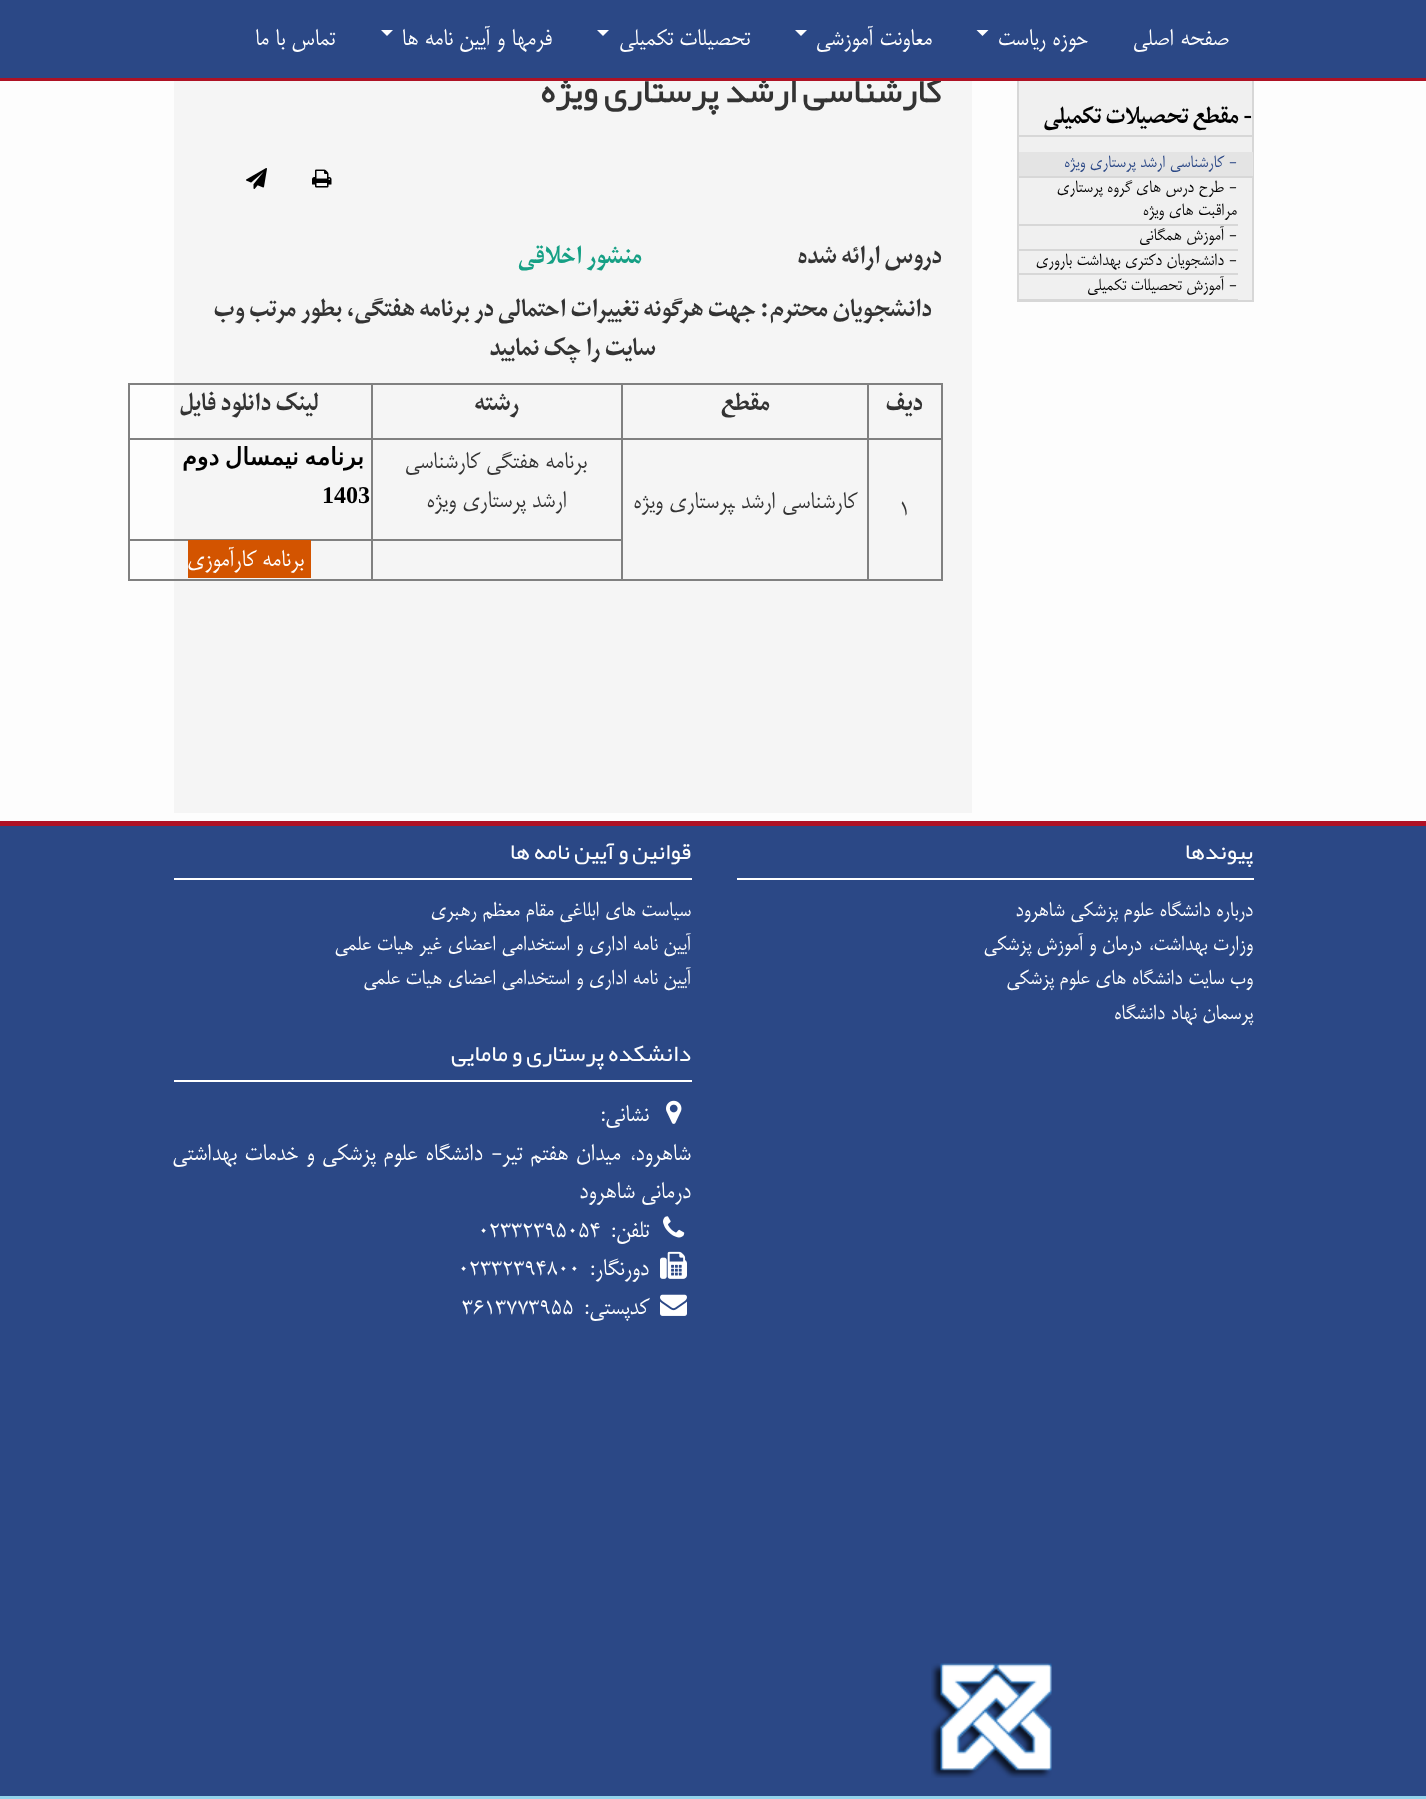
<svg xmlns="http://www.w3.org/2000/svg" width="1426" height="1799">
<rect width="100%" height="100%" fill="#fdfdfd"/>
<rect x="1019" y="81" width="233" height="219" fill="#f0f0f0"/>
<rect x="1018" y="43" width="235" height="258" fill="none" stroke="#d7d7d7" stroke-width="2"/>
<rect width="1426" height="78" fill="#2b4886"/>
<rect x="174" y="81" width="798" height="732" fill="#f5f5f5"/>
<text x="942" y="102" style="font-family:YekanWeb;font-size:35.1px;font-weight:bold;direction:rtl;fill:#333">کارشناسی ارشد پرستاری ویژه</text>
<rect y="78" width="1426" height="3" fill="#ae1225"/>
<text x="1229" y="45" style="font-family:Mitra;font-size:27px;direction:rtl;fill:#fff">صفحه اصلی</text>
<text x="1088" y="45" style="font-family:Mitra;font-size:27px;direction:rtl;fill:#fff">حوزه ریاست</text>
<path d="M976.5 30h12l-6 6z" fill="#fff"/>
<text x="932" y="45" style="font-family:Mitra;font-size:27px;direction:rtl;fill:#fff">معاونت آموزشی</text>
<path d="M795 30h12l-6 6z" fill="#fff"/>
<text x="750" y="45" style="font-family:Mitra;font-size:27px;direction:rtl;fill:#fff">تحصیلات تکمیلی</text>
<path d="M597 30h12l-6 6z" fill="#fff"/>
<text x="552" y="45" style="font-family:Mitra;font-size:27px;direction:rtl;fill:#fff">فرمها و آیین نامه ها</text>
<path d="M381 30h12l-6 6z" fill="#fff"/>
<text x="335" y="45" style="font-family:Mitra;font-size:27px;direction:rtl;fill:#fff">تماس با ما</text>
<rect x="1019" y="135" width="234" height="2" fill="#d7d7d7"/>
<text x="1252" y="123" style="font-family:Liberation Serif;font-size:25.5px;font-weight:bold;direction:rtl;fill:#000">-</text>
<text x="1239" y="123" style="font-family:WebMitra;font-size:25.5px;font-weight:bold;direction:rtl;fill:#000">مقطع تحصیلات تکمیلی</text>
<rect x="1019" y="152" width="234" height="24" fill="#e4e4e4"/>
<rect x="1019" y="176" width="234" height="2" fill="#d7d7d7"/>
<text x="1237" y="167" style="font-family:Mitra;font-size:19.5px;direction:rtl;fill:#2b4886">- کارشناسی ارشد پرستاری ویژه</text>
<rect x="1019" y="224" width="219" height="2" fill="#d7d7d7"/>
<text x="1237" y="192" style="font-family:Mitra;font-size:19.5px;direction:rtl;fill:#000">- طرح درس های گروه پرستاری</text>
<text x="1237" y="215" style="font-family:Mitra;font-size:19.5px;direction:rtl;fill:#000">مراقبت های ویژه</text>
<rect x="1019" y="249" width="219" height="2" fill="#d7d7d7"/>
<text x="1237" y="240" style="font-family:Mitra;font-size:19.5px;direction:rtl;fill:#000">- آموزش همگانی</text>
<rect x="1019" y="273" width="219" height="2" fill="#d7d7d7"/>
<text x="1237" y="265" style="font-family:Mitra;font-size:19.5px;direction:rtl;fill:#000">- دانشجویان دکتری بهداشت باروری</text>
<rect x="1019" y="299" width="219" height="1" fill="#d7d7d7"/>
<text x="1237" y="290" style="font-family:Mitra;font-size:19.5px;direction:rtl;fill:#000">- آموزش تحصیلات تکمیلی</text>
<image x="312" y="169" width="20" height="19" href="media/1.png"/>
<image x="246" y="168" width="21" height="21" href="media/2.png"/>
<text x="942" y="263" style="font-family:WebMitra;font-size:27px;font-weight:bold;direction:rtl;fill:#333">دروس ارائه شده</text>
<text x="642" y="263" style="font-family:WebMitra;font-size:27px;font-weight:bold;direction:rtl;fill:#16a085">منشور اخلاقی</text>
<text x="932" y="316" style="font-family:WebMitra;font-size:27px;font-weight:bold;direction:rtl;fill:#333">دانشجویان محترم</text>
<text x="769" y="316" style="font-family:Liberation Serif;font-size:27px;font-weight:bold;direction:rtl;fill:#333">:</text>
<text x="756" y="316" style="font-family:WebMitra;font-size:27px;font-weight:bold;direction:rtl;fill:#333">جهت هرگونه تغییرات احتمالی در برنامه هفتگی، بطور مرتب وب</text>
<text x="656" y="355" style="font-family:WebMitra;font-size:27px;font-weight:bold;direction:rtl;fill:#333">سایت را چک نمایید</text>
<rect x="128" y="383" width="814" height="2" fill="#808080"/>
<rect x="941" y="383" width="2" height="198" fill="#808080"/>
<rect x="128" y="579" width="814" height="2" fill="#808080"/>
<rect x="128" y="383" width="2" height="198" fill="#808080"/>
<text x="923" y="410" style="font-family:WebMitra;font-size:27px;font-weight:bold;direction:rtl;fill:#333">دیف</text>
<rect x="128" y="438" width="244" height="2" fill="#808080"/>
<rect x="128" y="539" width="244" height="2" fill="#808080"/>
<rect x="371" y="539" width="2" height="42" fill="#808080"/>
<rect x="371" y="539" width="252" height="2" fill="#808080"/>
<rect x="371" y="438" width="2" height="102" fill="#808080"/>
<rect x="371" y="438" width="252" height="2" fill="#808080"/>
<rect x="621" y="539" width="2" height="42" fill="#808080"/>
<rect x="621" y="438" width="2" height="102" fill="#808080"/>
<rect x="621" y="438" width="248" height="2" fill="#808080"/>
<rect x="867" y="438" width="2" height="143" fill="#808080"/>
<rect x="867" y="438" width="75" height="2" fill="#808080"/>
<rect x="867" y="383" width="2" height="57" fill="#808080"/>
<text x="770" y="410" style="font-family:WebMitra;font-size:27px;font-weight:bold;direction:rtl;fill:#333">مقطع</text>
<rect x="621" y="383" width="2" height="57" fill="#808080"/>
<text x="519" y="410" style="font-family:WebMitra;font-size:27px;font-weight:bold;direction:rtl;fill:#333">رشته</text>
<rect x="371" y="383" width="2" height="57" fill="#808080"/>
<text x="319" y="410" style="font-family:WebMitra;font-size:27px;font-weight:bold;direction:rtl;fill:#333">لینک دانلود فایل</text>
<text x="899" y="515" style="font-family:Mitra;font-size:27px;fill:#333">۱</text>
<text x="857" y="508" style="font-family:Mitra;font-size:27px;direction:rtl;fill:#333">کارشناسی ارشد ‍‍پرستاری ویژه</text>
<text x="587" y="468" style="font-family:Mitra;font-size:27px;direction:rtl;fill:#333">برنامه هفتگی کارشناسی</text>
<text x="567" y="507" style="font-family:Mitra;font-size:27px;direction:rtl;fill:#333">ارشد پرستاری ویژه</text>
<text x="364" y="465" word-spacing="-2" style="font-family:DejaVu Sans;font-size:24px;font-weight:bold;direction:rtl;fill:#000">برنامه نیمسال دوم</text>
<text x="322" y="503" style="font-family:Liberation Serif;font-size:24px;font-weight:bold;fill:#000">1403</text>
<rect x="188" y="540" width="123" height="38" fill="#d35400"/>
<text x="304" y="566" style="font-family:Mitra;font-size:27px;direction:rtl;fill:#fff">برنامه کارآموزی</text>
<rect y="826" width="1426" height="970" fill="#2b4886"/>
<rect y="821" width="1426" height="5" fill="#ae1225"/>
<rect x="737" y="878" width="517" height="2" fill="#fff"/>
<text x="1253" y="859" style="font-family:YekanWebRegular;font-size:23px;direction:rtl;fill:#fff">پیوندها</text>
<text x="1253" y="916" style="font-family:Mitra;font-size:24px;direction:rtl;fill:#fff">درباره دانشگاه علوم پزشکی شاهرود</text>
<text x="1253" y="950" style="font-family:Mitra;font-size:24px;direction:rtl;fill:#fff">وزارت بهداشت، درمان و آموزش پزشکی</text>
<text x="1253" y="984" style="font-family:Mitra;font-size:24px;direction:rtl;fill:#fff">وب سایت دانشگاه های علوم پزشکی</text>
<text x="1253" y="1019" style="font-family:Mitra;font-size:24px;direction:rtl;fill:#fff">پرسمان نهاد دانشگاه</text>
<rect x="174" y="878" width="518" height="2" fill="#fff"/>
<text x="691" y="859" style="font-family:YekanWebRegular;font-size:23px;direction:rtl;fill:#fff">قوانین و آیین نامه ها</text>
<text x="691" y="916" style="font-family:Mitra;font-size:24px;direction:rtl;fill:#fff">سیاست های ابلاغی مقام معظم رهبری</text>
<text x="691" y="950" style="font-family:Mitra;font-size:24px;direction:rtl;fill:#fff">آیین نامه اداری و استخدامی اعضای غیر هیات علمی</text>
<text x="691" y="984" style="font-family:Mitra;font-size:24px;direction:rtl;fill:#fff">آیین نامه اداری و استخدامی اعضای هیات علمی</text>
<rect x="174" y="1080" width="518" height="2" fill="#fff"/>
<text x="691" y="1061" style="font-family:YekanWebRegular;font-size:23.75px;direction:rtl;fill:#fff">دانشکده پرستاری و مامایی</text>
<image x="666" y="1100" width="16" height="24" href="media/3.png"/>
<text x="649" y="1121" style="font-family:Mitra;font-size:27px;direction:rtl;fill:#fff">نشانی:</text>
<text x="691" y="1160" word-spacing="1.5" style="font-family:Mitra;font-size:27px;direction:rtl;fill:#fff">شاهرود، میدان هفتم تیر- دانشگاه علوم پزشکی و خدمات بهداشتی</text>
<text x="691" y="1198" style="font-family:Mitra;font-size:27px;direction:rtl;fill:#fff">درمانی شاهرود</text>
<image x="663" y="1216" width="22" height="22" href="media/4.png"/>
<text x="649" y="1237" style="font-family:Mitra;font-size:27px;direction:rtl;fill:#fff">تلفن:</text>
<text x="478" y="1237" style="font-family:Mitra;font-size:27px;fill:#fff">۰۲۳۳۲۳۹۵۰۵۴</text>
<image x="660" y="1251" width="27" height="28" href="media/5.png"/>
<text x="649" y="1275" style="font-family:Mitra;font-size:27px;direction:rtl;fill:#fff">دورنگار:</text>
<text x="458" y="1275" style="font-family:Mitra;font-size:27px;fill:#fff">۰۲۳۳۲۳۹۴۸۰۰</text>
<image x="660" y="1294" width="27" height="22" href="media/6.png"/>
<text x="649" y="1314" style="font-family:Mitra;font-size:27px;direction:rtl;fill:#fff">کدپستی:</text>
<text x="462" y="1314" style="font-family:Mitra;font-size:27px;fill:#fff">۳۶۱۳۷۷۳۹۵۵</text>
<image x="931" y="1663" width="121" height="115" href="media/7.png"/>
<rect y="1796" width="1426" height="3" fill="#93d3eb"/>
</svg>
